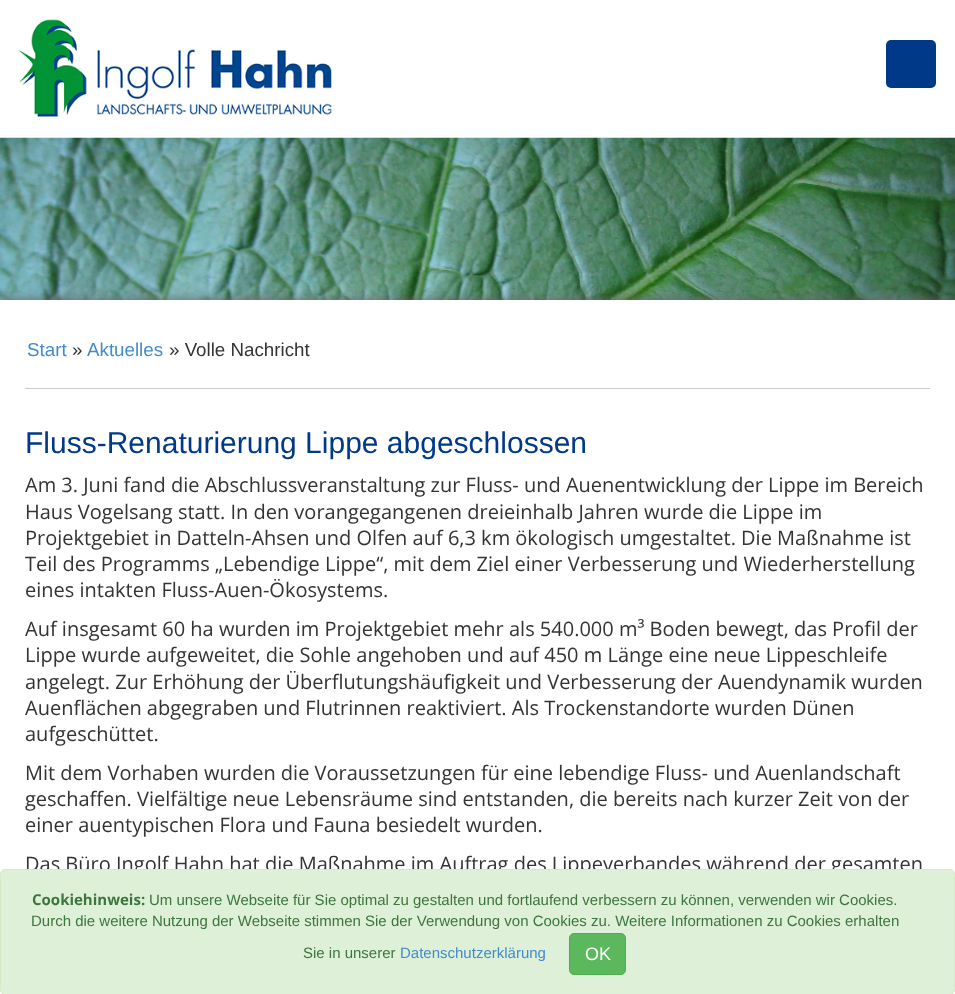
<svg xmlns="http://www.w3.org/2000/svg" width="955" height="994">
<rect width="100%" height="100%" fill="#fff"/>
<image x="18" y="19" width="314" height="98" href="media/1.png"/>
<rect x="886" y="40" width="50" height="48" rx="5" fill="#003987"/>
<image x="0" y="137" width="955" height="163" href="media/2.png"/>
<rect y="300" width="955" height="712" fill="#666" filter="blur(6px)"/>
<rect y="300" width="955" height="694" fill="#fff"/>
<rect x="25" y="388" width="905" height="1" fill="#ccc"/>
<text x="27" y="356" style="font-family:Liberation Sans;font-size:18.75px;fill:#428bca">Start</text>
<text x="72" y="356" style="font-family:Liberation Sans;font-size:18.75px;fill:#333">»</text>
<text x="87" y="356" style="font-family:Liberation Sans;font-size:18.75px;fill:#428bca">Aktuelles</text>
<text x="169" y="356" style="font-family:Liberation Sans;font-size:18.75px;fill:#333">» Volle Nachricht</text>
<text x="25" y="453" style="font-family:Liberation Sans;font-size:30px;fill:#003987">Fluss-Renaturierung Lippe abgeschlossen</text>
<text x="25" y="492" style="font-family:Open Sans;font-size:20px;fill:#333">Am 3. Juni fand die Abschlussveranstaltung zur Fluss- und Auenentwicklung der Lippe im Bereich</text>
<text x="25" y="519" style="font-family:Open Sans;font-size:20px;fill:#333">Haus Vogelsang statt. In den vorangegangenen dreieinhalb Jahren wurde die Lippe im</text>
<text x="25" y="545" style="font-family:Open Sans;font-size:20px;fill:#333">Projektgebiet in Datteln-Ahsen und Olfen auf 6,3 km ökologisch umgestaltet. Die Maßnahme ist</text>
<text x="25" y="571" style="font-family:Open Sans;font-size:20px;fill:#333">Teil des Programms „Lebendige Lippe“, mit dem Ziel einer Verbesserung und Wiederherstellung</text>
<text x="25" y="597" style="font-family:Open Sans;font-size:20px;fill:#333">eines intakten Fluss-Auen-Ökosystems.</text>
<text x="25" y="636" style="font-family:Open Sans;font-size:20px;fill:#333">Auf insgesamt 60 ha wurden im Projektgebiet mehr als 540.000 m³ Boden bewegt, das Profil der</text>
<text x="25" y="662" style="font-family:Open Sans;font-size:20px;fill:#333">Lippe wurde aufgeweitet, die Sohle angehoben und auf 450 m Länge eine neue Lippeschleife</text>
<text x="25" y="689" style="font-family:Open Sans;font-size:20px;fill:#333">angelegt. Zur Erhöhung der Überflutungshäufigkeit und Verbesserung der Auendynamik wurden</text>
<text x="25" y="715" style="font-family:Open Sans;font-size:20px;fill:#333">Auenflächen abgegraben und Flutrinnen reaktiviert. Als Trockenstandorte wurden Dünen</text>
<text x="25" y="741" style="font-family:Open Sans;font-size:20px;fill:#333">aufgeschüttet.</text>
<text x="25" y="780" style="font-family:Open Sans;font-size:20px;fill:#333">Mit dem Vorhaben wurden die Voraussetzungen für eine lebendige Fluss- und Auenlandschaft</text>
<text x="25" y="806" style="font-family:Open Sans;font-size:20px;fill:#333">geschaffen. Vielfältige neue Lebensräume sind entstanden, die bereits nach kurzer Zeit von der</text>
<text x="25" y="832" style="font-family:Open Sans;font-size:20px;fill:#333">einer auentypischen Flora und Fauna besiedelt wurden.</text>
<text x="25" y="871" style="font-family:Open Sans;font-size:20px;fill:#333">Das Büro Ingolf Hahn hat die Maßnahme im Auftrag des Lippeverbandes während der gesamten</text>
<rect x="0.5" y="869.5" width="954" height="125" rx="4.5" fill="#dff0d8" stroke="#d6e9c6"/>
<text x="32" y="905" style="font-family:Open Sans;font-size:15px;font-weight:bold;fill:#3c763d">Cookiehinweis:</text>
<text x="149" y="905" style="font-family:Liberation Sans;font-size:15px;fill:#3c763d">Um unsere Webseite für Sie optimal zu gestalten und fortlaufend verbessern zu können, verwenden wir Cookies.</text>
<text x="31" y="926" style="font-family:Liberation Sans;font-size:15px;fill:#3c763d">Durch die weitere Nutzung der Webseite stimmen Sie der Verwendung von Cookies zu. Weitere Informationen zu Cookies erhalten</text>
<text x="303" y="958" style="font-family:Liberation Sans;font-size:15px;fill:#3c763d">Sie in unserer</text>
<text x="400" y="958" style="font-family:Liberation Sans;font-size:15px;fill:#428bca">Datenschutzerklärung</text>
<rect x="569.5" y="933.5" width="56" height="41" rx="4.5" fill="#5cb85c" stroke="#4cae4c"/>
<text x="585" y="960" style="font-family:Liberation Sans;font-size:18px;fill:#fff">OK</text>
</svg>
